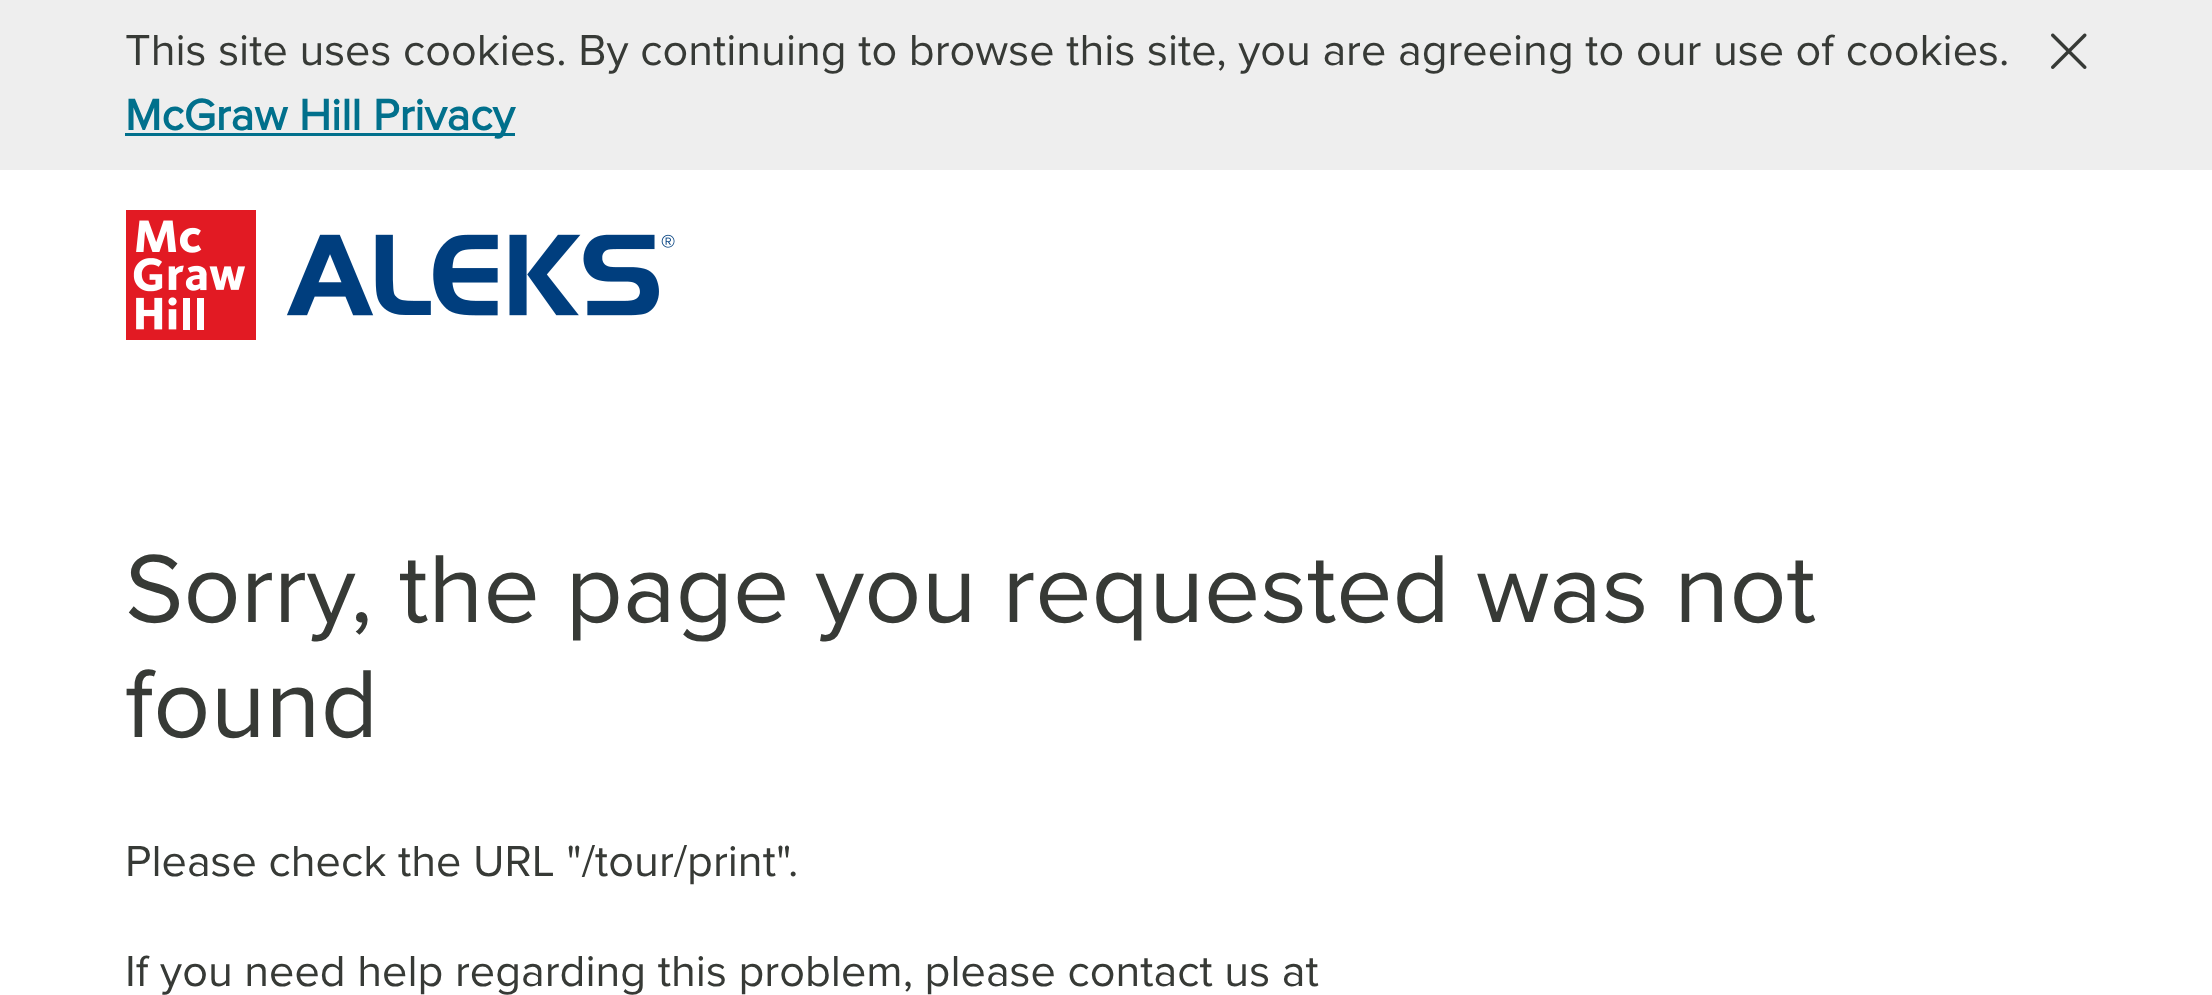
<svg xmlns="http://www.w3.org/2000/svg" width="2212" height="995">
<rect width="100%" height="100%" fill="#fff"/>
<rect width="2212" height="170" fill="#eee"/>
<text x="125" y="65" style="font-family:Proxima Nova;font-size:45px;fill:#373a36">This site uses cookies. By continuing to browse this site, you are agreeing to our use of cookies.</text>
<rect x="125" y="133" width="390" height="3" fill="#01708c"/>
<text x="125" y="130" style="font-family:Proxima Nova;font-size:45px;font-weight:bold;fill:#01708c">McGraw Hill Privacy</text>
<image x="2051" y="33" width="36" height="36" href="media/1.png"/>
<image x="126" y="210" width="549" height="130" href="media/2.png"/>
<text x="125" y="622" style="font-family:Proxima Nova;font-size:100px;fill:#373a36">Sorry, the page you requested was not</text>
<text x="125" y="737" style="font-family:Proxima Nova;font-size:100px;fill:#373a36">found</text>
<text x="125" y="876" style="font-family:Proxima Nova;font-size:45px;fill:#373a36">Please check the URL "/tour/print".</text>
<text x="125" y="986" style="font-family:Proxima Nova;font-size:45px;fill:#373a36">If you need help regarding this problem, please contact us at</text>
</svg>
